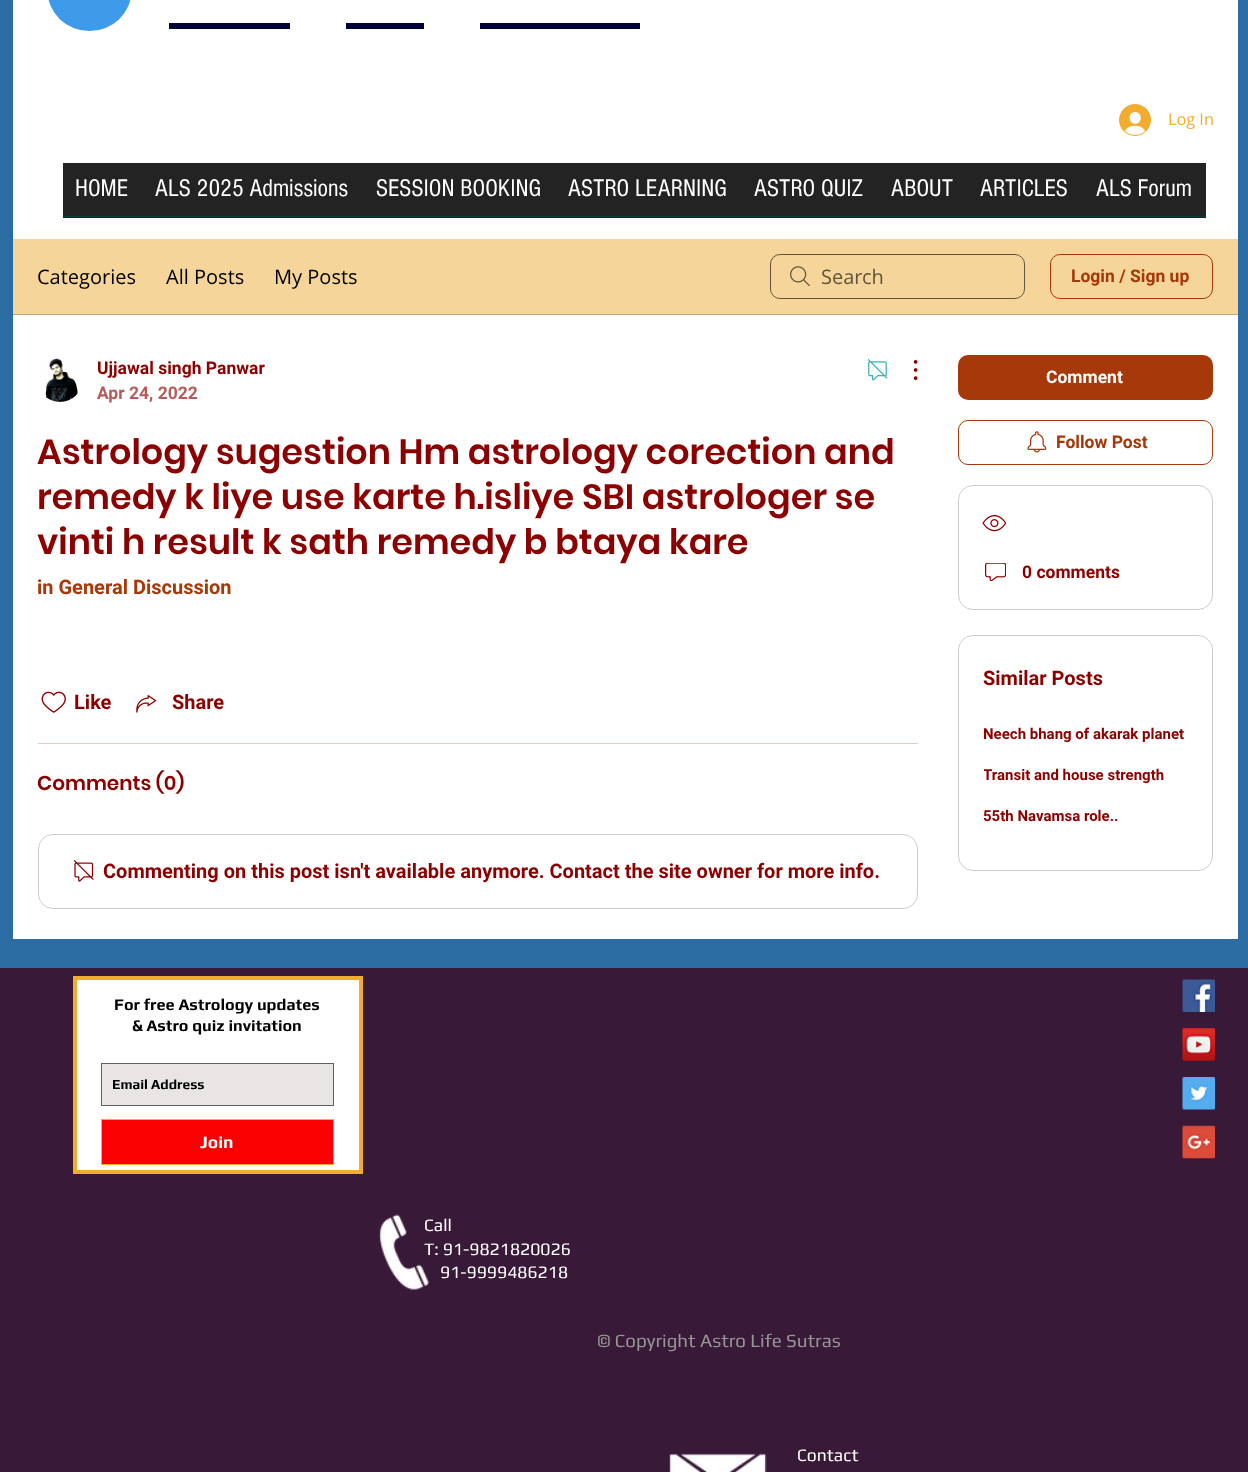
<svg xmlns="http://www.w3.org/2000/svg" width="1248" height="1472">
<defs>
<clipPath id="clip1"><rect x="98" y="355" width="167" height="25"/></clipPath>
<clipPath id="clip2"><rect x="984" y="763" width="202" height="26"/></clipPath>
<clipPath id="clip3"><rect x="113" y="1076" width="216" height="15"/></clipPath>
</defs>
<rect width="100%" height="100%" fill="#2b6ca3"/>
<rect x="13" width="1225" height="239" fill="#fff"/>
<ellipse cx="89.5" cy="-9.5" rx="42" ry="40.5" fill="#3d9be9"/>
<rect x="169" y="23" width="121" height="6" fill="#010038"/>
<rect x="346" y="23" width="78" height="6" fill="#010038"/>
<rect x="480" y="23" width="160" height="6" fill="#010038"/>
<image x="1119" y="104" width="32" height="32" href="media/1.png"/>
<text x="1168" y="125" style="font-family:Open Sans;font-size:16.25px;fill:#f2ad2e">Log In</text>
<rect x="63" y="163" width="1143" height="55" fill="#232323"/>
<rect x="63" y="216" width="1143" height="1" fill="#003f44"/>
<text x="75" y="196" style="font-family:'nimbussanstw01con';font-size:25px;fill:#fff">HOME</text>
<text x="155" y="196" style="font-family:'nimbussanstw01con';font-size:25px;fill:#fff">ALS 2025 Admissions</text>
<text x="376" y="196" style="font-family:'nimbussanstw01con';font-size:25px;fill:#fff">SESSION BOOKING</text>
<text x="568" y="196" style="font-family:'nimbussanstw01con';font-size:25px;fill:#fff">ASTRO LEARNING</text>
<text x="754" y="196" style="font-family:'nimbussanstw01con';font-size:25px;fill:#fff">ASTRO QUIZ</text>
<text x="891" y="196" style="font-family:'nimbussanstw01con';font-size:25px;fill:#fff">ABOUT</text>
<text x="980" y="196" style="font-family:'nimbussanstw01con';font-size:25px;fill:#fff">ARTICLES</text>
<text x="1096" y="196" style="font-family:'nimbussanstw01con';font-size:25px;fill:#fff">ALS Forum</text>
<rect x="13" y="239" width="1225" height="75" fill="#f5d599"/>
<rect x="13" y="314" width="1225" height="1" fill="#c4aa7a"/>
<text x="37" y="284" style="font-family:Open Sans;font-size:20px;fill:#000">Categories</text>
<text x="166" y="284" style="font-family:Open Sans;font-size:20px;fill:#000">All Posts</text>
<text x="274" y="284" style="font-family:Open Sans;font-size:20px;fill:#000">My Posts</text>
<image x="790" y="266" width="20" height="21" href="media/2.png"/>
<rect x="770.5" y="254.5" width="254" height="44" rx="9.5" fill="none" stroke="#62553d"/>
<text x="821" y="284" style="font-family:Open Sans;font-size:20px;fill:#62553d">Search</text>
<rect x="1050.5" y="254.5" width="162" height="44" rx="9.5" fill="none" stroke="#a63809"/>
<text x="1071" y="282" style="font-family:Roboto;font-size:17.5px;font-weight:bold;fill:#a63809">Login / Sign up</text>
<rect x="13" y="315" width="1225" height="624" fill="#fff"/>
<image x="45" y="358" width="33" height="44" href="media/3.png"/>
<g clip-path="url(#clip1)">
<text x="97" y="374" style="font-family:Roboto;font-size:17.5px;font-weight:bold;fill:#8b0000">Ujjawal singh Panwar</text>
</g>
<text x="97" y="399" style="font-family:Roboto;font-size:17.5px;font-weight:bold;fill:#b55c5c">Apr 24, 2022</text>
<image x="868" y="359" width="20" height="22" href="media/4.png"/>
<image x="913" y="360" width="5" height="20" href="media/5.png"/>
<text x="37" y="464" style="font-family:Poppins;font-size:35px;font-weight:600;fill:#8b0000">Astrology sugestion Hm astrology corection and</text>
<text x="37" y="509" style="font-family:Poppins;font-size:35px;font-weight:600;fill:#8b0000">remedy k liye use karte h.isliye SBI astrologer se</text>
<text x="37" y="554" style="font-family:Poppins;font-size:35px;font-weight:600;fill:#8b0000">vinti h result k sath remedy b btaya kare</text>
<text x="37" y="594" style="font-family:Roboto;font-size:20px;font-weight:bold;fill:#a63809">in General Discussion</text>
<image x="41" y="691" width="25" height="22" href="media/6.png"/>
<text x="74" y="709" style="font-family:Roboto;font-size:20px;font-weight:bold;fill:#8b0000">Like</text>
<image x="136" y="695" width="21" height="18" href="media/7.png"/>
<text x="172" y="709" style="font-family:Roboto;font-size:20px;font-weight:bold;fill:#8b0000">Share</text>
<rect x="38" y="743" width="880" height="1" fill="#e8cccc"/>
<text x="37" y="790" style="font-family:Poppins;font-size:20px;font-weight:600;fill:#8b0000">Comments (0)</text>
<rect x="38.5" y="834.5" width="879" height="74" rx="14.5" fill="none" stroke="#ccc"/>
<image x="74" y="860" width="20" height="22" href="media/8.png"/>
<text x="103" y="878" style="font-family:Roboto;font-size:20px;font-weight:bold;fill:#8b0000">Commenting on this post isn't available anymore. Contact the site owner for more info.</text>
<rect x="958" y="355" width="255" height="45" rx="10" fill="#a63809"/>
<text x="1046" y="383" style="font-family:Roboto;font-size:17.5px;font-weight:bold;fill:#fff">Comment</text>
<rect x="958.5" y="420.5" width="254" height="44" rx="9.5" fill="none" stroke="#a63809"/>
<image x="1027" y="431" width="20" height="22" href="media/9.png"/>
<text x="1056" y="448" style="font-family:Roboto;font-size:17.5px;font-weight:bold;fill:#a63809">Follow Post</text>
<rect x="958.5" y="485.5" width="254" height="124" rx="14.5" fill="none" stroke="#ccc"/>
<image x="982" y="515" width="25" height="17" href="media/10.png"/>
<image x="985" y="563" width="21" height="18" href="media/11.png"/>
<text x="1022" y="578" style="font-family:Roboto;font-size:17.5px;font-weight:bold;fill:#8b0000">0 comments</text>
<rect x="958.5" y="635.5" width="254" height="235" rx="14.5" fill="none" stroke="#ccc"/>
<text x="983" y="685" style="font-family:Roboto;font-size:20px;font-weight:bold;fill:#8b0000">Similar Posts</text>
<text x="983" y="739" style="font-family:Roboto;font-size:15px;font-weight:bold;fill:#8b0000">Neech bhang of akarak planet</text>
<g clip-path="url(#clip2)">
<text x="983" y="780" style="font-family:Roboto;font-size:15px;font-weight:bold;fill:#8b0000">Transit and house strength</text>
</g>
<text x="983" y="821" style="font-family:Roboto;font-size:15px;font-weight:bold;fill:#8b0000">55th Navamsa role..</text>
<rect y="968" width="1248" height="504" fill="#381a38"/>
<rect x="75" y="978" width="286" height="194" fill="#fff" stroke="#f2ad2e" stroke-width="4"/>
<text x="114" y="1010" style="font-family:Play;font-size:16.25px;font-weight:bold;fill:#000">For free Astrology updates</text>
<text x="132" y="1031" style="font-family:Play;font-size:16.25px;font-weight:bold;fill:#000">&amp; Astro quiz invitation</text>
<rect x="101.5" y="1063.5" width="232" height="42" fill="#eae5e5" stroke="#606060"/>
<g clip-path="url(#clip3)">
<text x="112" y="1089" style="font-family:Play;font-size:13.75px;font-weight:bold;fill:#000">Email Address</text>
</g>
<rect x="101.5" y="1119.5" width="232" height="45" fill="#fa0000" stroke="#f2ad2e"/>
<text x="200" y="1148" style="font-family:Play;font-size:17.5px;font-weight:bold;fill:#fff">Join</text>
<image x="1182" y="979" width="33" height="33" href="media/12.png"/>
<image x="1182" y="1028" width="33" height="33" href="media/13.png"/>
<image x="1182" y="1077" width="33" height="33" href="media/14.png"/>
<image x="1182" y="1125" width="33" height="34" href="media/15.png"/>
<image x="379" y="1214" width="50" height="76" href="media/16.png"/>
<text x="424" y="1231" style="font-family:Play;font-size:17.5px;fill:#fff">Call</text>
<text x="424" y="1255" style="font-family:Play;font-size:17.5px;fill:#fff">T: 91-9821820026</text>
<text x="440" y="1278" style="font-family:Play;font-size:17.5px;fill:#fff">91-9999486218</text>
<text x="597" y="1347" style="font-family:Play;font-size:18.75px;fill:#959595">© Copyright Astro Life Sutras</text>
<image x="669" y="1453" width="98" height="19" href="media/17.png"/>
<text x="797" y="1461" style="font-family:Play;font-size:17.5px;fill:#fff">Contact</text>
</svg>
